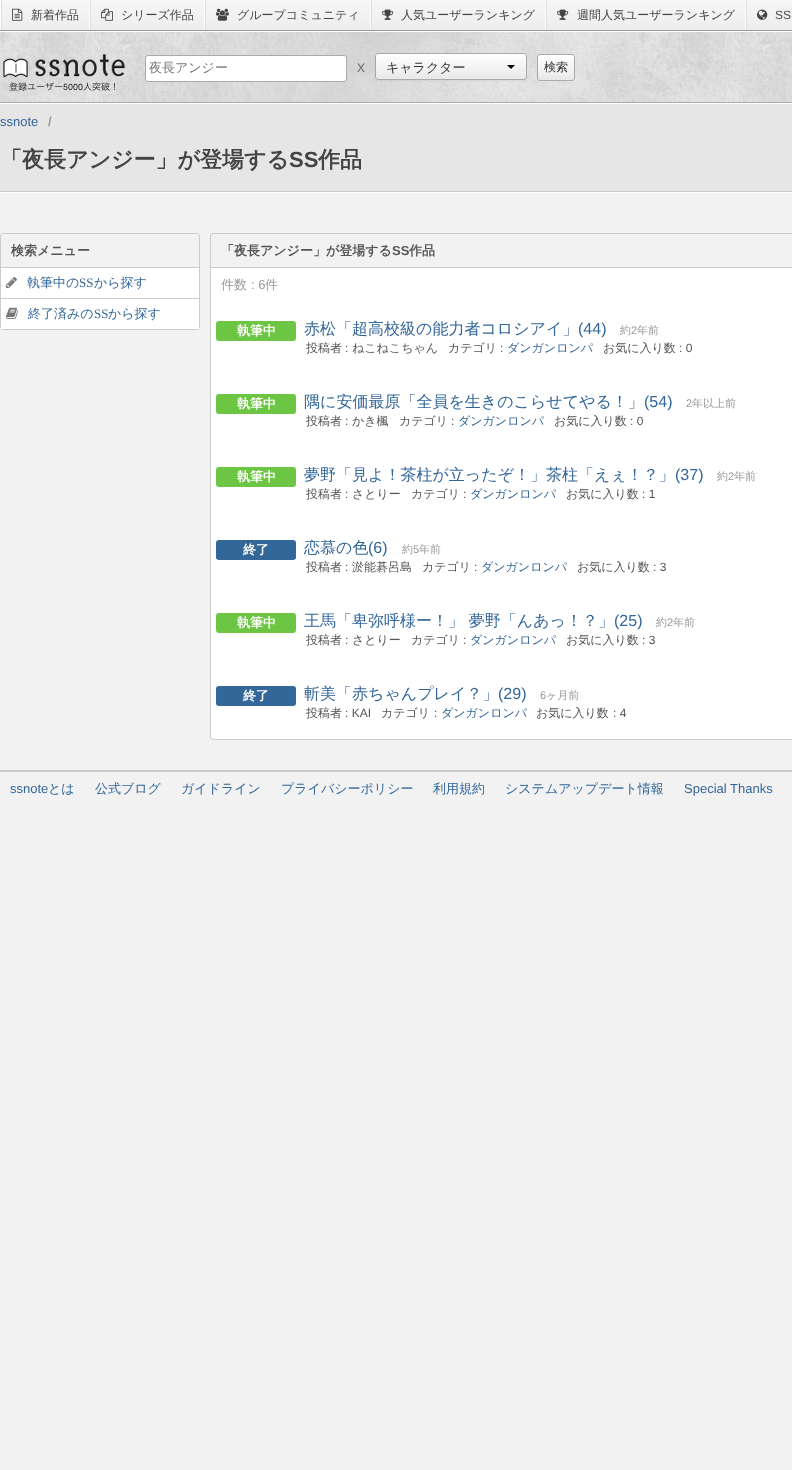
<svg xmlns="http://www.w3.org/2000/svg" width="792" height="1470">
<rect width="100%" height="100%" fill="#f2f2f2"/>
<image x="2" y="0" width="790" height="30" href="media/1.png"/>
<rect y="30" width="792" height="1" fill="#999"/>
<rect width="1" height="30" fill="#fff"/>
<rect x="89" width="1" height="30" fill="#fff"/>
<rect x="1" width="1" height="30" fill="#ddd"/>
<image x="12" y="8" width="11" height="13" href="media/2.png"/>
<text x="31" y="19" style="font-family:WenQuanYi Zen Hei;font-size:12px;font-weight:500;fill:#444">新着作品</text>
<rect x="204" width="1" height="30" fill="#fff"/>
<rect x="90" width="1" height="30" fill="#ddd"/>
<image x="101" y="8" width="12" height="13" href="media/3.png"/>
<text x="121" y="19" style="font-family:WenQuanYi Zen Hei;font-size:12px;font-weight:500;fill:#444">シリーズ作品</text>
<rect x="370" width="1" height="30" fill="#fff"/>
<rect x="205" width="1" height="30" fill="#ddd"/>
<image x="216" y="8" width="13" height="13" href="media/4.png"/>
<text x="237" y="19" style="font-family:WenQuanYi Zen Hei;font-size:12px;font-weight:500;fill:#444">グループコミュニティ</text>
<rect x="545" width="1" height="30" fill="#fff"/>
<rect x="371" width="1" height="30" fill="#ddd"/>
<image x="382" y="9" width="12" height="11" href="media/5.png"/>
<text x="401" y="19" style="font-family:WenQuanYi Zen Hei;font-size:12px;font-weight:500;fill:#444">人気ユーザーランキング</text>
<rect x="745" width="1" height="30" fill="#fff"/>
<rect x="546" width="1" height="30" fill="#ddd"/>
<image x="557" y="9" width="12" height="11" href="media/5.png"/>
<text x="577" y="19" style="font-family:WenQuanYi Zen Hei;font-size:12px;font-weight:500;fill:#444">週間人気ユーザーランキング</text>
<rect x="746" width="1" height="30" fill="#ddd"/>
<image x="757" y="9" width="11" height="11" href="media/6.png"/>
<text x="775" y="19" style="font-family:Liberation Sans;font-size:12px;fill:#444">SS</text>
<image x="0" y="32" width="792" height="70" href="media/7.png"/>
<rect y="31" width="792" height="1" fill="#fefefe"/>
<rect y="102" width="792" height="1" fill="#aaa"/>
<image x="3" y="54" width="122" height="37" href="media/8.png"/>
<rect x="145.5" y="55.5" width="201" height="26" rx="2.5" fill="#fff" stroke="#aaa"/>
<text x="149" y="72" style="font-family:WenQuanYi Zen Hei;font-size:13px;font-weight:500;fill:#777">夜長アンジー</text>
<text x="357" y="72" style="font-family:Liberation Sans;font-size:16px;fill:#777">x</text>
<rect x="375" y="54" width="152" height="27" rx="3" fill="#0000000d" filter="blur(1px)"/>
<image x="375" y="54" width="152" height="26" href="media/9.png"/>
<path d="M378 55h146c1 0 2 1 2 2c0-9-23-3-26-3h-123c-1 1-1 2-1 3c0-1 1-2 2-2z" fill="#ffffff33"/>
<rect x="375.5" y="53.5" width="151" height="26" rx="2.5" fill="none" stroke="#aaa"/>
<text x="386" y="72" style="font-family:WenQuanYi Zen Hei;font-size:13px;font-weight:500;fill:#333">キャラクター</text>
<path d="M507 65h8l-4 4z" fill="#000"/>
<image x="538" y="55" width="37" height="26" href="media/10.png"/>
<rect x="537.5" y="54.5" width="37" height="26" rx="2.5" fill="none" stroke="#aaa"/>
<text x="544" y="71" style="font-family:WenQuanYi Zen Hei;font-size:12px;font-weight:500;fill:#333">検索</text>
<rect y="104" width="792" height="87" fill="#e6e6e6"/>
<rect y="103" width="792" height="1" fill="#fff"/>
<rect y="192" width="792" height="1" fill="#fefefe"/>
<rect y="191" width="792" height="1" fill="#ccc"/>
<text x="0" y="126" style="font-family:Liberation Sans;font-size:13px;fill:#369">ssnote</text>
<text x="48" y="126" style="font-family:Liberation Sans;font-size:13px;font-weight:bold;fill:#999">/</text>
<text x="0" y="167" style="font-family:WenQuanYi Zen Hei;font-size:22px;font-weight:bold;fill:#444">「夜長アンジー」が登場する</text>
<text x="289" y="167" style="font-family:Liberation Sans;font-size:22px;font-weight:bold;fill:#444">SS</text>
<text x="318" y="167" style="font-family:WenQuanYi Zen Hei;font-size:22px;font-weight:bold;fill:#444">作品</text>
<rect x="0.5" y="233.5" width="199" height="96" rx="2.5" fill="none" stroke="#ccc"/>
<rect x="1" y="267" width="198" height="1" fill="#ccc"/>
<text x="11" y="255" style="font-family:WenQuanYi Zen Hei;font-size:13px;font-weight:bold;fill:#555">検索メニュー</text>
<rect x="1" y="268" width="198" height="61" fill="#fff"/>
<rect x="1" y="298" width="198" height="1" fill="#ccc"/>
<image x="6" y="277" width="11" height="11" href="media/11.png"/>
<text x="27" y="287" style="font-family:WenQuanYi Zen Hei;font-size:13px;font-weight:500;fill:#369">執筆中の</text>
<text x="79" y="287" style="font-family:Liberation Serif;font-size:13px;fill:#369">SS</text>
<text x="94" y="287" style="font-family:WenQuanYi Zen Hei;font-size:13px;font-weight:500;fill:#369">から探す</text>
<image x="6" y="307" width="12" height="12" href="media/12.png"/>
<text x="28" y="318" style="font-family:WenQuanYi Zen Hei;font-size:13px;font-weight:500;fill:#369">終了済みの</text>
<text x="94" y="318" style="font-family:Liberation Serif;font-size:13px;fill:#369">SS</text>
<text x="108" y="318" style="font-family:WenQuanYi Zen Hei;font-size:13px;font-weight:500;fill:#369">から探す</text>
<rect x="210.5" y="233.5" width="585" height="506" rx="2.5" fill="none" stroke="#ccc"/>
<rect x="211" y="267" width="581" height="1" fill="#ccc"/>
<text x="221" y="255" style="font-family:WenQuanYi Zen Hei;font-size:13px;font-weight:bold;fill:#555">「夜長アンジー」が登場する</text>
<text x="392" y="255" style="font-family:Liberation Sans;font-size:13px;font-weight:bold;fill:#555">SS</text>
<text x="409" y="255" style="font-family:WenQuanYi Zen Hei;font-size:13px;font-weight:bold;fill:#555">作品</text>
<path d="M211 268h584v468c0 1.5-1.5 3-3 3h-578c-1.5 0-3-1.5-3-3z" fill="#fff"/>
<text x="221" y="289" style="font-family:WenQuanYi Zen Hei;font-size:13px;font-weight:500;fill:#999">件数</text>
<text x="251" y="289" style="font-family:Liberation Sans;font-size:13px;fill:#999">: 6</text>
<text x="265" y="289" style="font-family:WenQuanYi Zen Hei;font-size:13px;font-weight:500;fill:#999">件</text>
<rect x="216" y="321" width="80" height="20" rx="3" fill="#6cc644"/>
<text x="237" y="335" style="font-family:WenQuanYi Zen Hei;font-size:13px;font-weight:bold;fill:#fff">執筆中</text>
<text x="304" y="334" style="font-family:WenQuanYi Zen Hei;font-size:16px;font-weight:500;fill:#369">赤松「超高校級の能力者コロシアイ」</text>
<text x="578" y="334" style="font-family:Liberation Sans;font-size:16px;fill:#369">(44)</text>
<text x="620" y="334" style="font-family:WenQuanYi Zen Hei;font-size:11px;font-weight:500;fill:#999">約</text>
<text x="631" y="334" style="font-family:Liberation Sans;font-size:11px;fill:#999">2</text>
<text x="637" y="334" style="font-family:WenQuanYi Zen Hei;font-size:11px;font-weight:500;fill:#999">年前</text>
<text x="306" y="352" style="font-family:WenQuanYi Zen Hei;font-size:12px;font-weight:500;fill:#555">投稿者</text>
<text x="345" y="352" style="font-family:Liberation Sans;font-size:12px;fill:#555">:</text>
<text x="352" y="352" style="font-family:WenQuanYi Zen Hei;font-size:12px;font-weight:500;fill:#555">ねこねこちゃん</text>
<text x="448" y="352" style="font-family:WenQuanYi Zen Hei;font-size:12px;font-weight:500;fill:#555">カテゴリ</text>
<text x="500" y="352" style="font-family:Liberation Sans;font-size:12px;fill:#555">:</text>
<text x="507" y="352" style="font-family:WenQuanYi Zen Hei;font-size:12px;font-weight:500;fill:#369">ダンガンロンパ</text>
<text x="603" y="352" style="font-family:WenQuanYi Zen Hei;font-size:12px;font-weight:500;fill:#555">お気に入り数</text>
<text x="679" y="352" style="font-family:Liberation Sans;font-size:12px;fill:#555">: 0</text>
<rect x="216" y="394" width="80" height="20" rx="3" fill="#6cc644"/>
<text x="237" y="408" style="font-family:WenQuanYi Zen Hei;font-size:13px;font-weight:bold;fill:#fff">執筆中</text>
<text x="304" y="407" style="font-family:WenQuanYi Zen Hei;font-size:16px;font-weight:500;fill:#369">隅に安価最原「全員を生きのこらせてやる！」</text>
<text x="644" y="407" style="font-family:Liberation Sans;font-size:16px;fill:#369">(54)</text>
<text x="686" y="407" style="font-family:Liberation Sans;font-size:11px;fill:#999">2</text>
<text x="692" y="407" style="font-family:WenQuanYi Zen Hei;font-size:11px;font-weight:500;fill:#999">年以上前</text>
<text x="306" y="425" style="font-family:WenQuanYi Zen Hei;font-size:12px;font-weight:500;fill:#555">投稿者</text>
<text x="345" y="425" style="font-family:Liberation Sans;font-size:12px;fill:#555">:</text>
<text x="352" y="425" style="font-family:WenQuanYi Zen Hei;font-size:12px;font-weight:500;fill:#555">かき楓</text>
<text x="399" y="425" style="font-family:WenQuanYi Zen Hei;font-size:12px;font-weight:500;fill:#555">カテゴリ</text>
<text x="451" y="425" style="font-family:Liberation Sans;font-size:12px;fill:#555">:</text>
<text x="458" y="425" style="font-family:WenQuanYi Zen Hei;font-size:12px;font-weight:500;fill:#369">ダンガンロンパ</text>
<text x="554" y="425" style="font-family:WenQuanYi Zen Hei;font-size:12px;font-weight:500;fill:#555">お気に入り数</text>
<text x="630" y="425" style="font-family:Liberation Sans;font-size:12px;fill:#555">: 0</text>
<rect x="216" y="467" width="80" height="20" rx="3" fill="#6cc644"/>
<text x="237" y="481" style="font-family:WenQuanYi Zen Hei;font-size:13px;font-weight:bold;fill:#fff">執筆中</text>
<text x="304" y="480" style="font-family:WenQuanYi Zen Hei;font-size:16px;font-weight:500;fill:#369">夢野「見よ！茶柱が立ったぞ！」茶柱「えぇ！？」</text>
<text x="675" y="480" style="font-family:Liberation Sans;font-size:16px;fill:#369">(37)</text>
<text x="717" y="480" style="font-family:WenQuanYi Zen Hei;font-size:11px;font-weight:500;fill:#999">約</text>
<text x="728" y="480" style="font-family:Liberation Sans;font-size:11px;fill:#999">2</text>
<text x="734" y="480" style="font-family:WenQuanYi Zen Hei;font-size:11px;font-weight:500;fill:#999">年前</text>
<text x="306" y="498" style="font-family:WenQuanYi Zen Hei;font-size:12px;font-weight:500;fill:#555">投稿者</text>
<text x="345" y="498" style="font-family:Liberation Sans;font-size:12px;fill:#555">:</text>
<text x="352" y="498" style="font-family:WenQuanYi Zen Hei;font-size:12px;font-weight:500;fill:#555">さとりー</text>
<text x="411" y="498" style="font-family:WenQuanYi Zen Hei;font-size:12px;font-weight:500;fill:#555">カテゴリ</text>
<text x="463" y="498" style="font-family:Liberation Sans;font-size:12px;fill:#555">:</text>
<text x="470" y="498" style="font-family:WenQuanYi Zen Hei;font-size:12px;font-weight:500;fill:#369">ダンガンロンパ</text>
<text x="566" y="498" style="font-family:WenQuanYi Zen Hei;font-size:12px;font-weight:500;fill:#555">お気に入り数</text>
<text x="642" y="498" style="font-family:Liberation Sans;font-size:12px;fill:#555">: 1</text>
<rect x="216" y="540" width="80" height="20" rx="3" fill="#369"/>
<text x="243" y="554" style="font-family:WenQuanYi Zen Hei;font-size:13px;font-weight:bold;fill:#fff">終了</text>
<text x="304" y="553" style="font-family:WenQuanYi Zen Hei;font-size:16px;font-weight:500;fill:#369">恋慕の色</text>
<text x="368" y="553" style="font-family:Liberation Sans;font-size:16px;fill:#369">(6)</text>
<text x="402" y="553" style="font-family:WenQuanYi Zen Hei;font-size:11px;font-weight:500;fill:#999">約</text>
<text x="413" y="553" style="font-family:Liberation Sans;font-size:11px;fill:#999">5</text>
<text x="419" y="553" style="font-family:WenQuanYi Zen Hei;font-size:11px;font-weight:500;fill:#999">年前</text>
<text x="306" y="571" style="font-family:WenQuanYi Zen Hei;font-size:12px;font-weight:500;fill:#555">投稿者</text>
<text x="345" y="571" style="font-family:Liberation Sans;font-size:12px;fill:#555">:</text>
<text x="352" y="571" style="font-family:WenQuanYi Zen Hei;font-size:12px;font-weight:500;fill:#555">淤能碁呂島</text>
<text x="422" y="571" style="font-family:WenQuanYi Zen Hei;font-size:12px;font-weight:500;fill:#555">カテゴリ</text>
<text x="474" y="571" style="font-family:Liberation Sans;font-size:12px;fill:#555">:</text>
<text x="481" y="571" style="font-family:WenQuanYi Zen Hei;font-size:12px;font-weight:500;fill:#369">ダンガンロンパ</text>
<text x="577" y="571" style="font-family:WenQuanYi Zen Hei;font-size:12px;font-weight:500;fill:#555">お気に入り数</text>
<text x="653" y="571" style="font-family:Liberation Sans;font-size:12px;fill:#555">: 3</text>
<rect x="216" y="613" width="80" height="20" rx="3" fill="#6cc644"/>
<text x="237" y="627" style="font-family:WenQuanYi Zen Hei;font-size:13px;font-weight:bold;fill:#fff">執筆中</text>
<text x="304" y="626" style="font-family:WenQuanYi Zen Hei;font-size:16px;font-weight:500;fill:#369">王馬「卑弥呼様ー！」 夢野「んあっ！？」</text>
<text x="614" y="626" style="font-family:Liberation Sans;font-size:16px;fill:#369">(25)</text>
<text x="656" y="626" style="font-family:WenQuanYi Zen Hei;font-size:11px;font-weight:500;fill:#999">約</text>
<text x="667" y="626" style="font-family:Liberation Sans;font-size:11px;fill:#999">2</text>
<text x="673" y="626" style="font-family:WenQuanYi Zen Hei;font-size:11px;font-weight:500;fill:#999">年前</text>
<text x="306" y="644" style="font-family:WenQuanYi Zen Hei;font-size:12px;font-weight:500;fill:#555">投稿者</text>
<text x="345" y="644" style="font-family:Liberation Sans;font-size:12px;fill:#555">:</text>
<text x="352" y="644" style="font-family:WenQuanYi Zen Hei;font-size:12px;font-weight:500;fill:#555">さとりー</text>
<text x="411" y="644" style="font-family:WenQuanYi Zen Hei;font-size:12px;font-weight:500;fill:#555">カテゴリ</text>
<text x="463" y="644" style="font-family:Liberation Sans;font-size:12px;fill:#555">:</text>
<text x="470" y="644" style="font-family:WenQuanYi Zen Hei;font-size:12px;font-weight:500;fill:#369">ダンガンロンパ</text>
<text x="566" y="644" style="font-family:WenQuanYi Zen Hei;font-size:12px;font-weight:500;fill:#555">お気に入り数</text>
<text x="642" y="644" style="font-family:Liberation Sans;font-size:12px;fill:#555">: 3</text>
<rect x="216" y="686" width="80" height="20" rx="3" fill="#369"/>
<text x="243" y="700" style="font-family:WenQuanYi Zen Hei;font-size:13px;font-weight:bold;fill:#fff">終了</text>
<text x="304" y="699" style="font-family:WenQuanYi Zen Hei;font-size:16px;font-weight:500;fill:#369">斬美「赤ちゃんプレイ？」</text>
<text x="498" y="699" style="font-family:Liberation Sans;font-size:16px;fill:#369">(29)</text>
<text x="540" y="699" style="font-family:Liberation Sans;font-size:11px;fill:#999">6</text>
<text x="546" y="699" style="font-family:WenQuanYi Zen Hei;font-size:11px;font-weight:500;fill:#999">ヶ月前</text>
<text x="306" y="717" style="font-family:WenQuanYi Zen Hei;font-size:12px;font-weight:500;fill:#555">投稿者</text>
<text x="345" y="717" style="font-family:Liberation Sans;font-size:12px;fill:#555">: KAI</text>
<text x="381" y="717" style="font-family:WenQuanYi Zen Hei;font-size:12px;font-weight:500;fill:#555">カテゴリ</text>
<text x="434" y="717" style="font-family:Liberation Sans;font-size:12px;fill:#555">:</text>
<text x="441" y="717" style="font-family:WenQuanYi Zen Hei;font-size:12px;font-weight:500;fill:#369">ダンガンロンパ</text>
<text x="536" y="717" style="font-family:WenQuanYi Zen Hei;font-size:12px;font-weight:500;fill:#555">お気に入り数</text>
<text x="613" y="717" style="font-family:Liberation Sans;font-size:12px;fill:#555">: 4</text>
<rect y="770" width="792" height="2" fill="#ccc"/>
<text x="10" y="793" style="font-family:Liberation Sans;font-size:13px;fill:#369">ssnote</text>
<text x="48" y="793" style="font-family:WenQuanYi Zen Hei;font-size:13px;font-weight:500;fill:#369">とは</text>
<text x="95" y="793" style="font-family:WenQuanYi Zen Hei;font-size:13px;font-weight:500;fill:#369">公式ブログ</text>
<text x="181" y="793" style="font-family:WenQuanYi Zen Hei;font-size:13px;font-weight:500;fill:#369">ガイドライン</text>
<text x="281" y="793" style="font-family:WenQuanYi Zen Hei;font-size:13px;font-weight:500;fill:#369">プライバシーポリシー</text>
<text x="433" y="793" style="font-family:WenQuanYi Zen Hei;font-size:13px;font-weight:500;fill:#369">利用規約</text>
<text x="505" y="793" style="font-family:WenQuanYi Zen Hei;font-size:13px;font-weight:500;fill:#369">システムアップデート情報</text>
<text x="684" y="793" style="font-family:Liberation Sans;font-size:13px;fill:#369">Special Thanks</text>
</svg>
